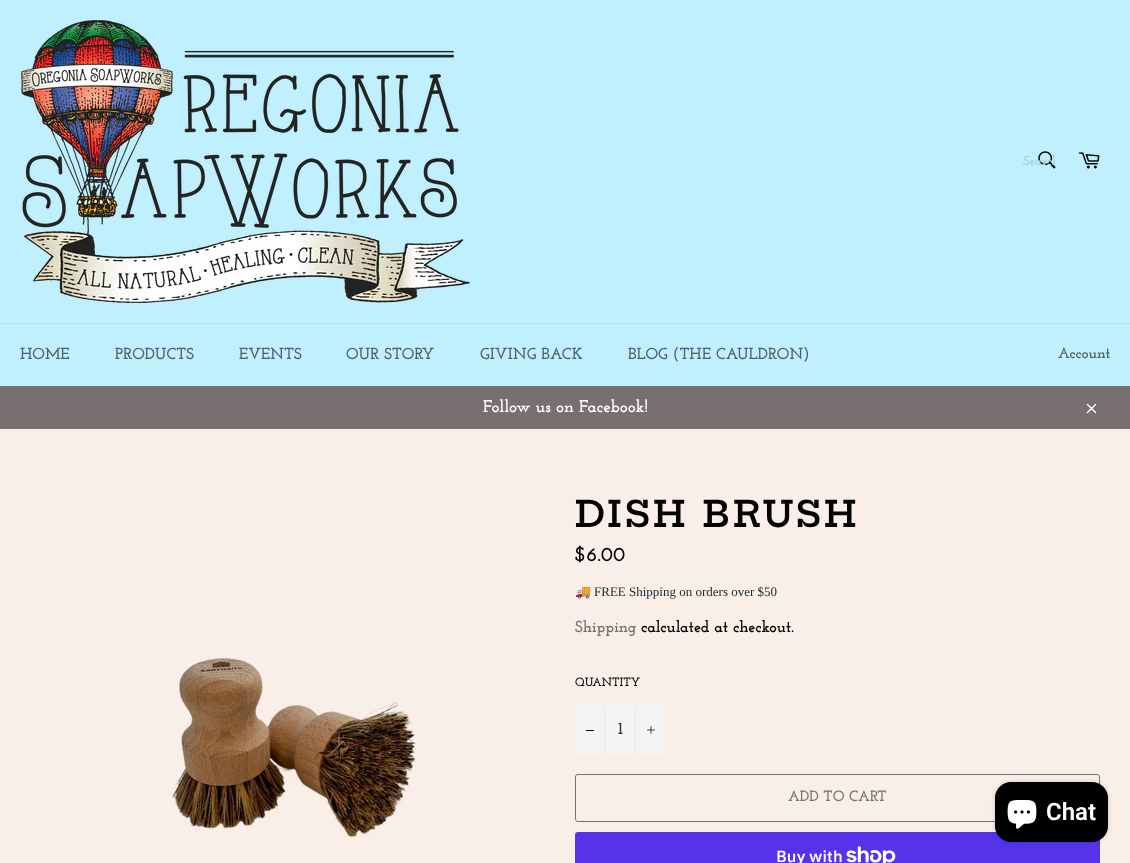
<svg xmlns="http://www.w3.org/2000/svg" width="1130" height="863">
<defs>
<clipPath id="clip1"><rect x="1023" y="155" width="32" height="13"/></clipPath>
</defs>
<rect width="100%" height="100%" fill="#f9efe8"/>
<rect width="1130" height="386" fill="#c0f0fd"/>
<image x="21" y="20" width="449" height="283" href="media/1.png"/>
<image x="1038" y="151" width="18" height="18" href="media/2.png"/>
<g clip-path="url(#clip1)">
<text x="1023" y="165" style="font-family:Josefin Slab;font-size:13px;font-weight:bold;fill:#a7d0db">Search</text>
</g>
<image x="1078" y="152" width="22" height="17" href="media/3.png"/>
<rect y="323" width="1130" height="1" fill="#a7eafc"/>
<text x="20" y="359" style="font-family:Josefin Slab;font-size:16px;font-weight:bold;fill:#4f6267">HOME</text>
<text x="115" y="359" style="font-family:Josefin Slab;font-size:16px;font-weight:bold;fill:#4f6267">PRODUCTS</text>
<text x="239" y="359" style="font-family:Josefin Slab;font-size:16px;font-weight:bold;fill:#4f6267">EVENTS</text>
<text x="346" y="359" style="font-family:Josefin Slab;font-size:16px;font-weight:bold;fill:#4f6267">OUR STORY</text>
<text x="480" y="359" style="font-family:Josefin Slab;font-size:16px;font-weight:bold;fill:#4f6267">GIVING BACK</text>
<text x="628" y="359" style="font-family:Josefin Slab;font-size:16px;font-weight:bold;fill:#4f6267">BLOG (THE CAULDRON)</text>
<text x="1058" y="358" style="font-family:Josefin Slab;font-size:15px;font-weight:bold;fill:#4f6267">Account</text>
<rect y="386" width="1130" height="43" fill="#787070"/>
<text x="483" y="412" style="font-family:Josefin Slab;font-size:17px;font-weight:bold;fill:#fff">Follow us on Facebook!</text>
<image x="1086" y="403" width="11" height="11" href="media/4.png"/>
<image x="172" y="657" width="244" height="180" href="media/5.png"/>
<text x="575" y="527" style="font-family:Hepta Slab;font-size:36px;font-weight:600;letter-spacing:3.6px;fill:#030303">DISH BRUSH</text>
<text x="575" y="561" style="font-family:Josefin Slab;font-size:20px;font-weight:bold;fill:#030303">$6.00</text>
<text x="575" y="596" style="font-family:Noto Color Emoji;font-size:13px;fill:#212b35">🚚</text>
<text x="594" y="596" style="font-family:Liberation Serif;font-size:13px;fill:#212b35">FREE Shipping on orders over $50</text>
<text x="575" y="632" style="font-family:Josefin Slab;font-size:16px;font-weight:bold;fill:#787070">Shipping</text>
<text x="641" y="632" style="font-family:Josefin Slab;font-size:16px;font-weight:bold;fill:#030303">calculated at checkout.</text>
<text x="575" y="686" style="font-family:Josefin Slab;font-size:12px;font-weight:bold;fill:#030303">QUANTITY</text>
<rect x="575" y="705" width="90" height="49" fill="#f4f4f4"/>
<rect x="604" y="705" width="1" height="49" fill="#e7e7e7"/>
<rect x="586" y="730" width="8" height="1" fill="#030303"/>
<text x="618" y="734" style="font-family:Josefin Slab;font-size:17px;font-weight:bold;fill:#333">1</text>
<rect x="635" y="705" width="1" height="49" fill="#e7e7e7"/>
<image x="647" y="726" width="8" height="8" href="media/6.png"/>
<rect x="575.5" y="774.5" width="524" height="47" rx="2.5" fill="none" stroke="#787070"/>
<text x="788" y="801" style="font-family:Josefin Slab;font-size:15px;font-weight:bold;fill:#787070">ADD TO CART</text>
<rect x="575" y="832" width="525" height="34" rx="3" fill="#5433eb"/>
<text x="776" y="862" style="font-family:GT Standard;font-size:16px;font-weight:600;fill:#fff">Buy with</text>
<image x="846" y="846" width="50" height="17" href="media/7.png"/>
<rect x="995" y="782" width="113" height="60" rx="16" fill="#00000026" filter="blur(2.5px)"/>
<rect x="995" y="782" width="113" height="60" rx="16" fill="#000"/>
<image x="1007" y="800" width="30" height="29" href="media/8.png"/>
<text x="1046" y="820" style="font-family:Roboto;font-size:24px;font-weight:600;fill:#fff">Chat</text>
</svg>
